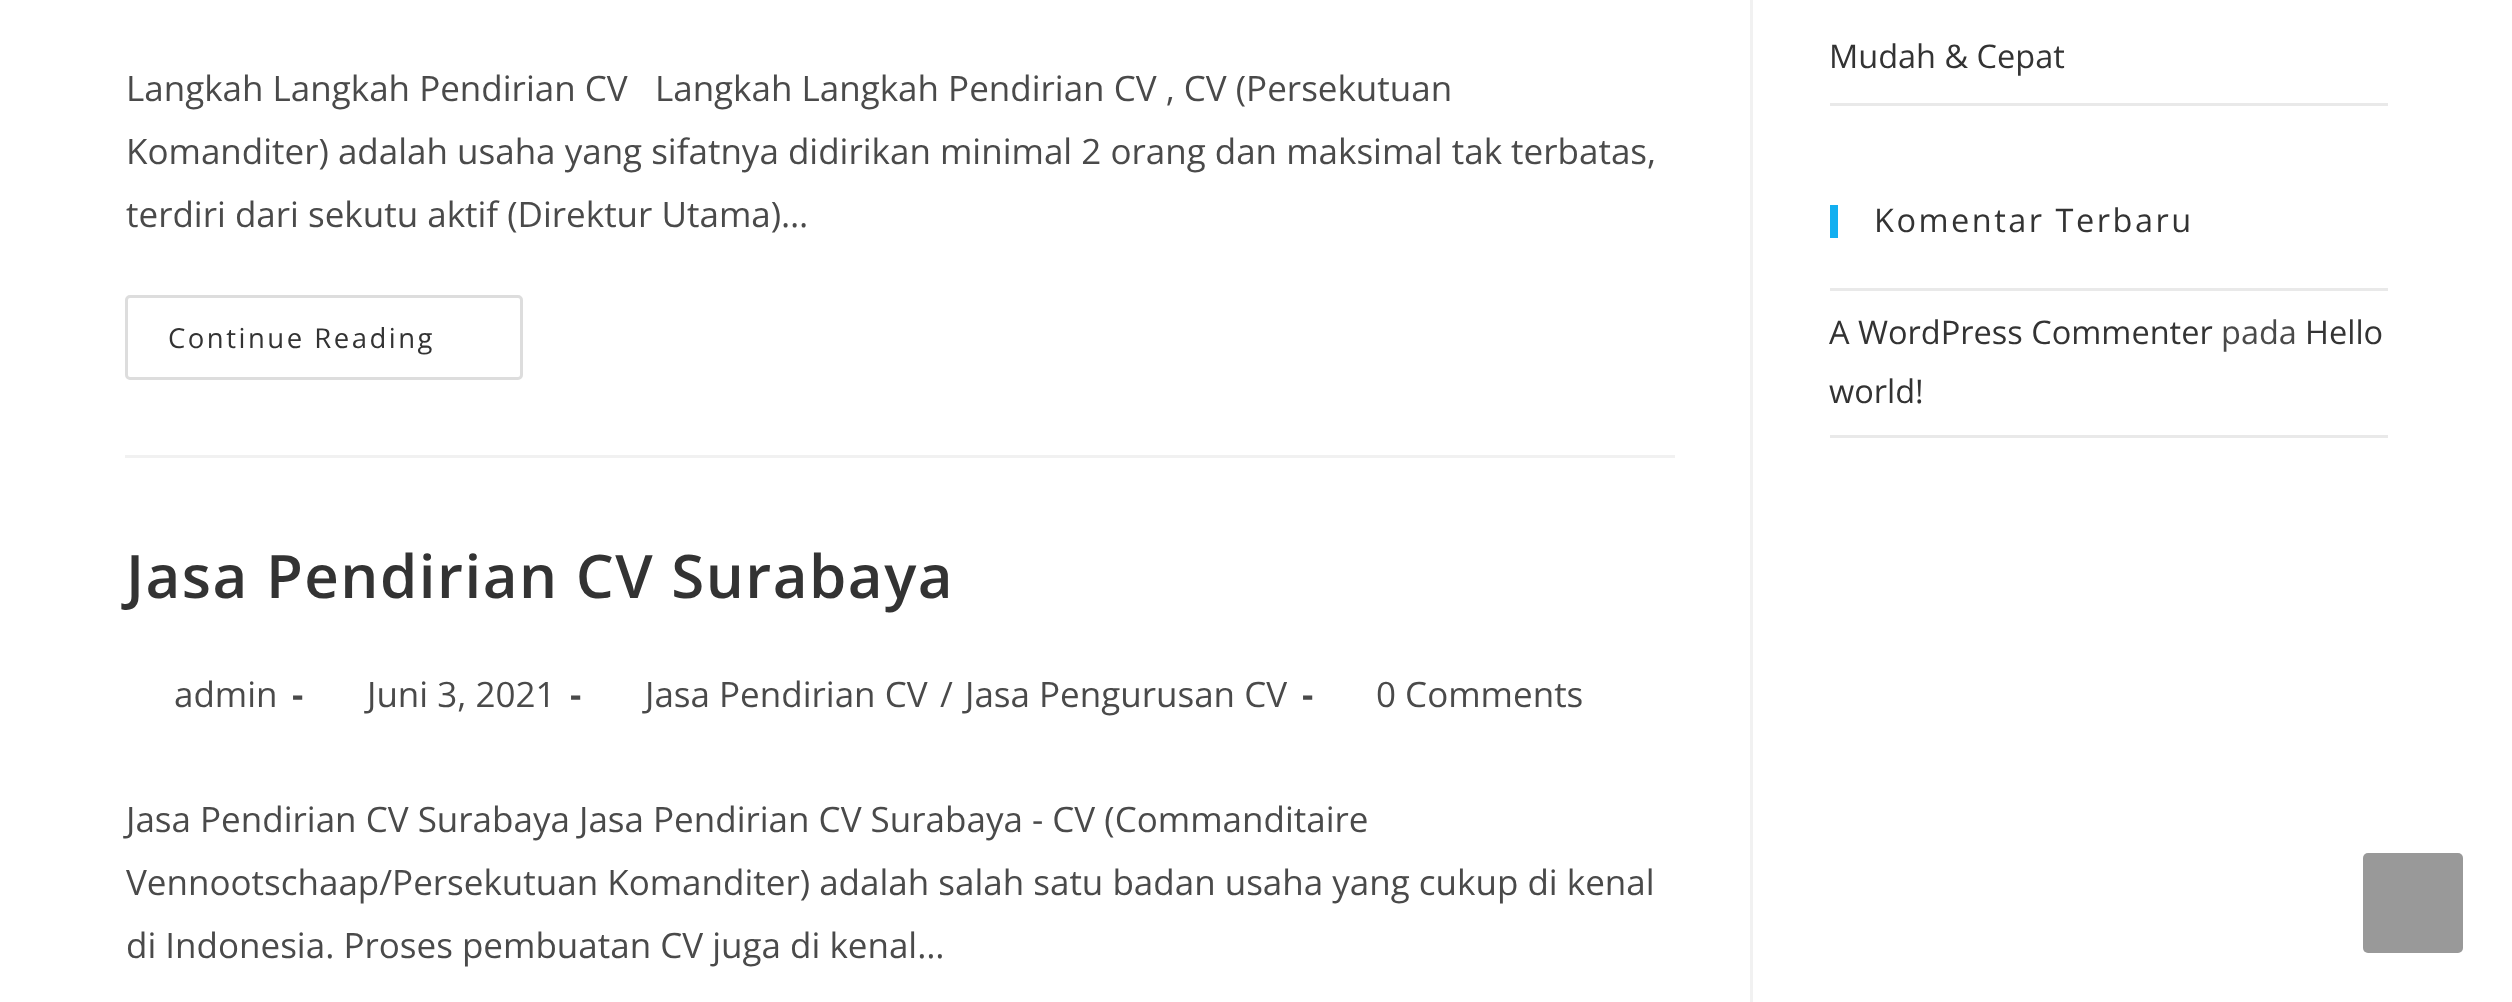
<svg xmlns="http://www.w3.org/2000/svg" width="2512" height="1002">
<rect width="100%" height="100%" fill="#fff"/>
<rect x="1750" width="3" height="1002" fill="#f1f1f1"/>
<rect x="125" y="455" width="1550" height="3" fill="#f1f1f1"/>
<text x="126" y="101" style="font-family:Open Sans;font-size:35px;fill:#4a4a4a" xml:space="preserve">Langkah Langkah Pendirian CV   Langkah Langkah Pendirian CV , CV (Persekutuan</text>
<text x="126" y="164" style="font-family:Open Sans;font-size:35px;fill:#4a4a4a">Komanditer) adalah usaha yang sifatnya didirikan minimal 2 orang dan maksimal tak terbatas,</text>
<text x="126" y="227" style="font-family:Open Sans;font-size:35px;fill:#4a4a4a">terdiri dari sekutu aktif (Direktur Utama)…</text>
<rect x="126.5" y="296.5" width="395" height="82" rx="3.5" fill="none" stroke="#ddd" stroke-width="3"/>
<text x="168" y="348" style="font-family:Open Sans;font-size:27.5px;letter-spacing:2.5px;fill:#333">Continue Reading</text>
<text x="126" y="598" style="font-family:Open Sans;font-size:60px;font-weight:600;letter-spacing:1.5px;fill:#333">Jasa Pendirian CV Surabaya</text>
<text x="174" y="707" style="font-family:Open Sans;font-size:35px;fill:#4a4a4a">admin</text>
<text x="292" y="707" style="font-family:Open Sans;font-size:35px;font-weight:bold;fill:#4a4a4a">-</text>
<text x="367" y="707" style="font-family:Open Sans;font-size:35px;fill:#4a4a4a">Juni 3, 2021</text>
<text x="570" y="707" style="font-family:Open Sans;font-size:35px;font-weight:bold;fill:#4a4a4a">-</text>
<text x="645" y="707" style="font-family:Open Sans;font-size:35px;fill:#4a4a4a">Jasa Pendirian CV</text>
<text x="940" y="707" style="font-family:Open Sans;font-size:35px;fill:#4a4a4a">/</text>
<text x="965" y="707" style="font-family:Open Sans;font-size:35px;fill:#4a4a4a">Jasa Pengurusan CV</text>
<text x="1302" y="707" style="font-family:Open Sans;font-size:35px;font-weight:bold;fill:#4a4a4a">-</text>
<text x="1376" y="707" style="font-family:Open Sans;font-size:35px;fill:#4a4a4a">0 Comments</text>
<text x="126" y="832" style="font-family:Open Sans;font-size:35px;fill:#4a4a4a">Jasa Pendirian CV Surabaya Jasa Pendirian CV Surabaya - CV (Commanditaire</text>
<text x="126" y="895" style="font-family:Open Sans;font-size:35px;fill:#4a4a4a">Vennootschaap/Persekutuan Komanditer) adalah salah satu badan usaha yang cukup di kenal</text>
<text x="126" y="958" style="font-family:Open Sans;font-size:35px;fill:#4a4a4a">di Indonesia. Proses pembuatan CV juga di kenal…</text>
<rect x="1830" y="103" width="558" height="3" fill="#e9e9e9"/>
<text x="1829" y="68" style="font-family:Open Sans;font-size:32.5px;fill:#333">Mudah &amp; Cepat</text>
<rect x="1830" y="205" width="8" height="33" fill="#13aff0"/>
<text x="1874" y="232" style="font-family:Open Sans;font-size:32.5px;letter-spacing:2.5px;fill:#333">Komentar Terbaru</text>
<rect x="1830" y="288" width="558" height="3" fill="#e9e9e9"/>
<rect x="1830" y="435" width="558" height="3" fill="#e9e9e9"/>
<text x="1829" y="344" style="font-family:Open Sans;font-size:32.5px;fill:#333">A WordPress Commenter</text>
<text x="2221" y="344" style="font-family:Open Sans;font-size:32.5px;fill:#4a4a4a">pada</text>
<text x="2305" y="344" style="font-family:Open Sans;font-size:32.5px;fill:#333">Hello</text>
<text x="1829" y="403" style="font-family:Open Sans;font-size:32.5px;fill:#333">world!</text>
<rect x="2363" y="853" width="100" height="100" rx="5" fill="#999"/>
</svg>
